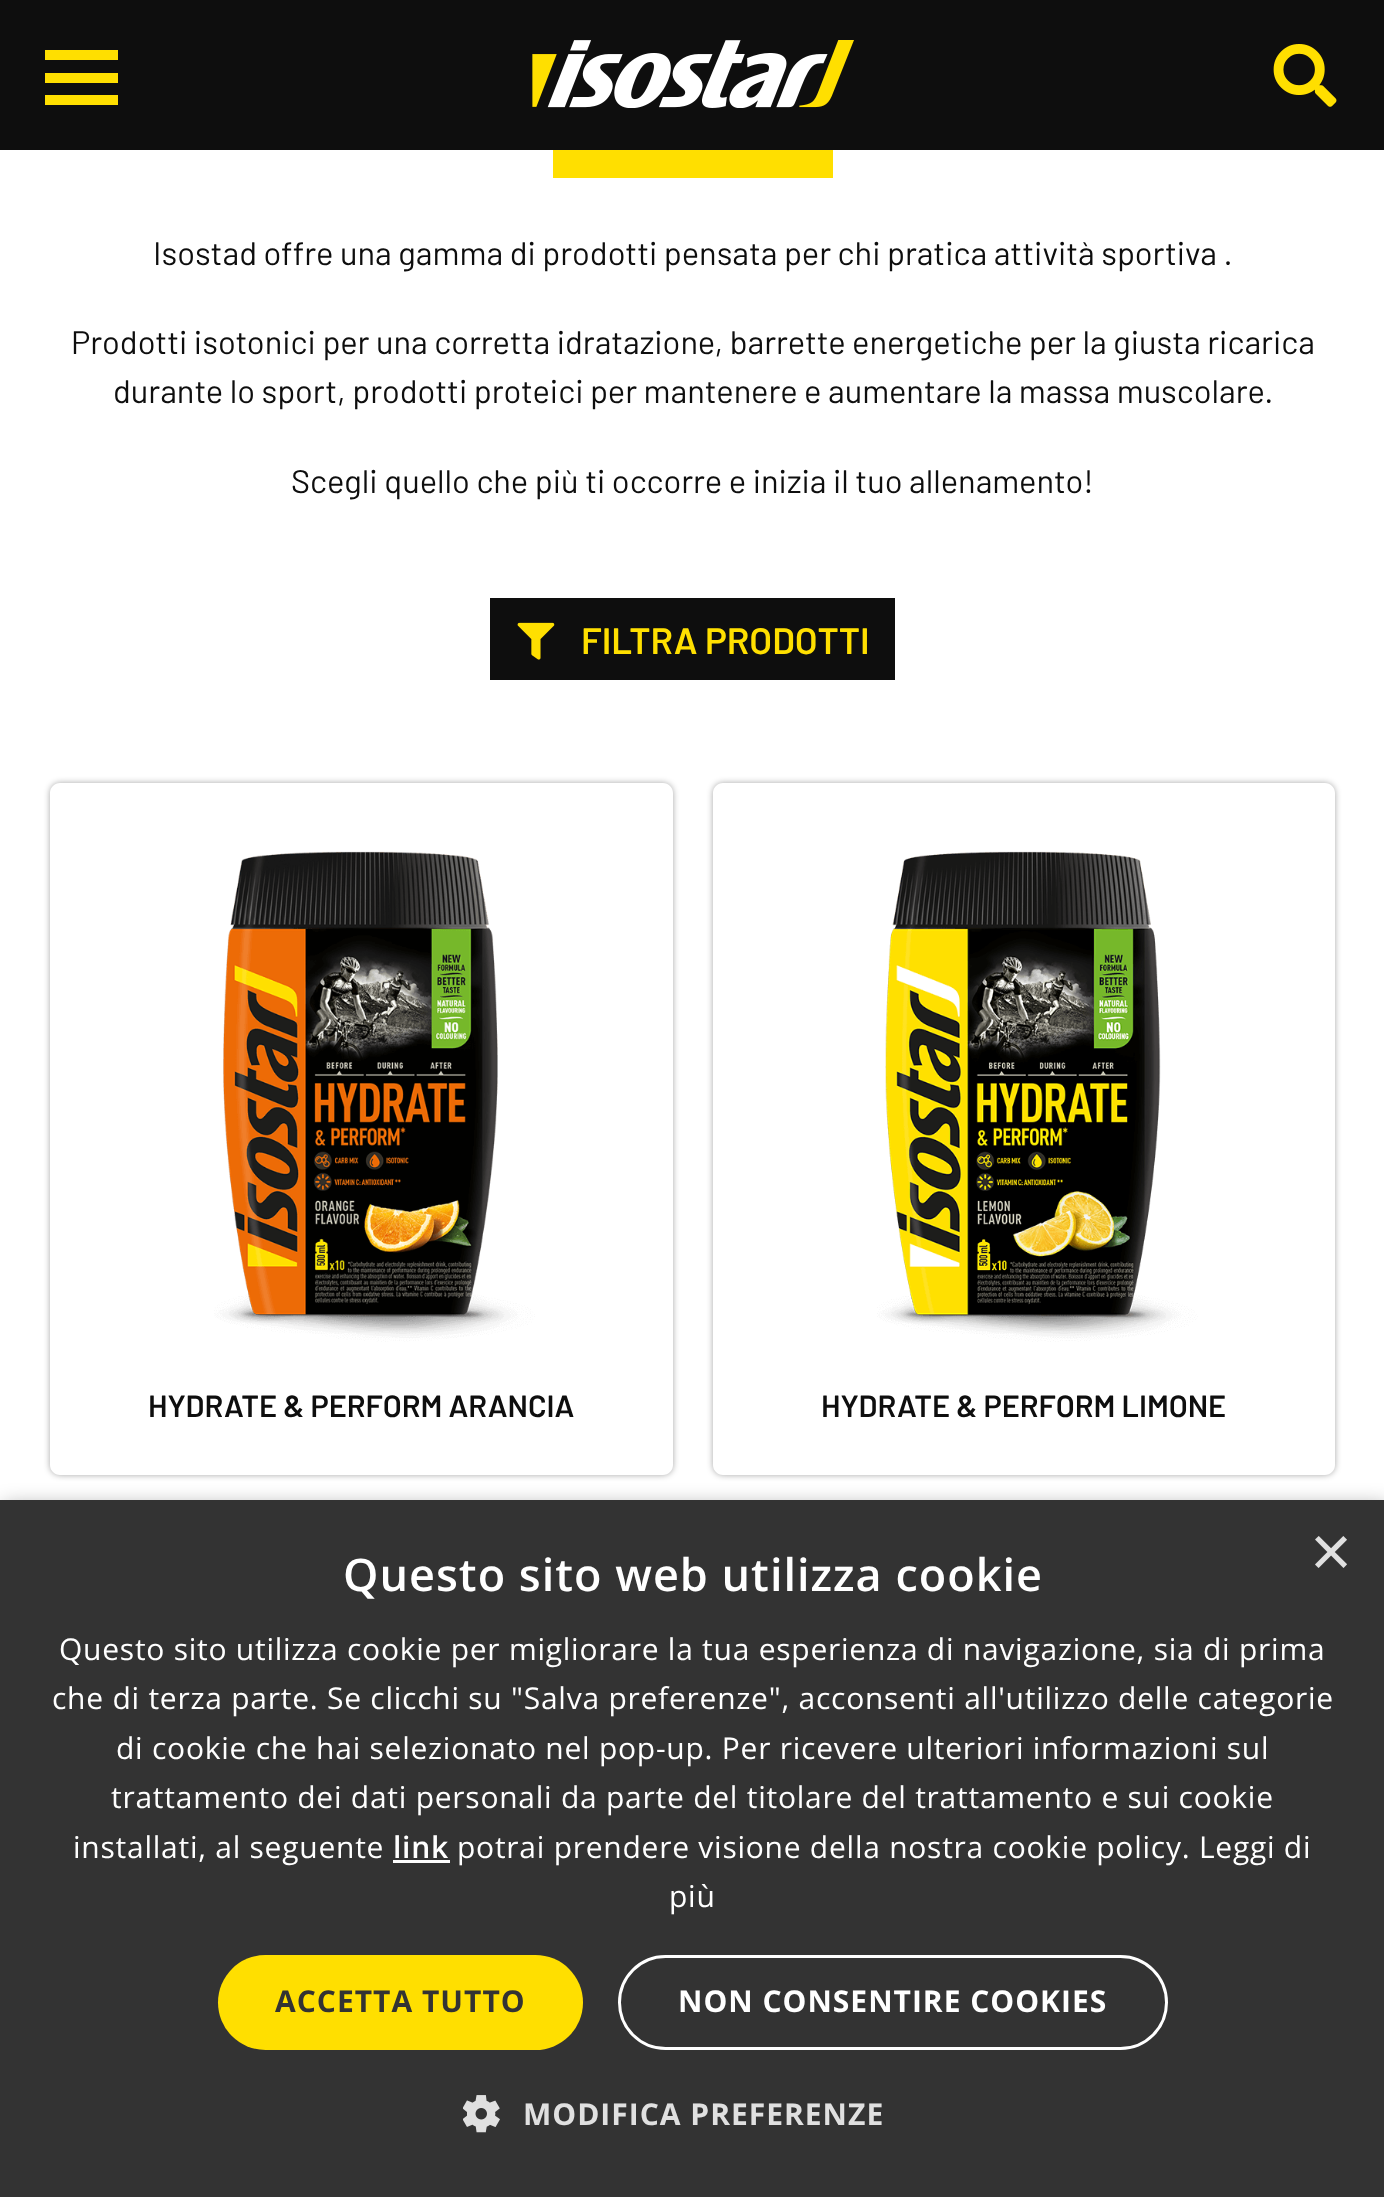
<svg xmlns="http://www.w3.org/2000/svg" width="1384" height="2197">
<defs>
<clipPath id="clip1"><path d="M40 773h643v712h-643zm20 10h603c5.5 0 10 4.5 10 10v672c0 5.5-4.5 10-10 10h-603c-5.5 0-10-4.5-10-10v-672c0-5.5 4.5-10 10-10z" clip-rule="evenodd"/></clipPath>
<clipPath id="clip2"><path d="M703 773h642v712h-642zm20 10h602c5.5 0 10 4.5 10 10v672c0 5.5-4.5 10-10 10h-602c-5.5 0-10-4.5-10-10v-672c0-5.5 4.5-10 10-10z" clip-rule="evenodd"/></clipPath>
</defs>
<rect width="100%" height="100%" fill="#fff"/>
<rect width="1384" height="150" fill="#0e0e0e"/>
<rect x="45" y="73" width="73" height="10" fill="#ffdf00"/>
<rect x="45" y="50" width="73" height="10" fill="#ffdf00"/>
<rect x="45" y="95" width="73" height="10" fill="#ffdf00"/>
<image x="532" y="40" width="322" height="68" href="media/1.png"/>
<image x="1273" y="44" width="64" height="63" href="media/2.png"/>
<rect x="553" y="150" width="280" height="28" fill="#ffdf00"/>
<text x="153" y="265" style="font-family:Barlow;font-size:32.65px;fill:#0e0e0e">Isostad offre una gamma di prodotti pensata per chi pratica attività sportiva .</text>
<text x="71" y="354" style="font-family:Barlow;font-size:32.65px;fill:#0e0e0e">Prodotti isotonici per una corretta idratazione, barrette energetiche per la giusta ricarica</text>
<text x="113" y="403" style="font-family:Barlow;font-size:32.65px;fill:#0e0e0e">durante lo sport, prodotti proteici per mantenere e aumentare la massa muscolare.</text>
<text x="291" y="493" style="font-family:Barlow;font-size:32.65px;fill:#0e0e0e">Scegli quello che più ti occorre e inizia il tuo allenamento!</text>
<rect x="490" y="598" width="405" height="82" fill="#0e0e0e"/>
<image x="517" y="622" width="38" height="38" href="media/3.png"/>
<text x="581" y="654" style="font-family:Barlow;font-size:36.75px;font-weight:600;fill:#ffdf00">FILTRA PRODOTTI</text>
<g clip-path="url(#clip1)">
<rect x="50" y="783" width="623" height="692" rx="10" fill="#00000059" filter="blur(3px)"/>
</g>
<image x="214" y="851" width="321" height="491" href="media/4.png"/>
<text x="148" y="1417" style="font-family:Barlow;font-size:30.6px;font-weight:600;fill:#0e0e0e">HYDRATE &amp; PERFORM ARANCIA</text>
<g clip-path="url(#clip2)">
<rect x="713" y="783" width="622" height="692" rx="10" fill="#00000059" filter="blur(3px)"/>
</g>
<image x="877" y="851" width="321" height="491" href="media/5.png"/>
<text x="821" y="1417" style="font-family:Barlow;font-size:30.6px;font-weight:600;fill:#0e0e0e">HYDRATE &amp; PERFORM LIMONE</text>
<rect x="3" y="1505" width="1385" height="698" fill="#00000059" filter="blur(10px)"/>
<rect y="1500" width="1384" height="697" fill="#333"/>
<text x="1310" y="1576" style="font-family:Liberation Sans;font-size:72px;fill:#e0e0e0">×</text>
<text x="343" y="1591" style="font-family:Open Sans;font-size:45px;font-weight:600;letter-spacing:1px;fill:#fff">Questo sito web utilizza cookie</text>
<text x="59" y="1660" style="font-family:Open Sans;font-size:30px;letter-spacing:0.75px;fill:#fff">Questo sito utilizza cookie per migliorare la tua esperienza di navigazione, sia di prima</text>
<text x="52" y="1709" style="font-family:Open Sans;font-size:30px;letter-spacing:0.75px;fill:#fff">che di terza parte. Se clicchi su "Salva preferenze", acconsenti all'utilizzo delle categorie</text>
<text x="116" y="1759" style="font-family:Open Sans;font-size:30px;letter-spacing:0.75px;fill:#fff">di cookie che hai selezionato nel pop-up. Per ricevere ulteriori informazioni sul</text>
<text x="111" y="1808" style="font-family:Open Sans;font-size:30px;letter-spacing:0.75px;fill:#fff">trattamento dei dati personali da parte del titolare del trattamento e sui cookie</text>
<text x="73" y="1858" style="font-family:Open Sans;font-size:30px;letter-spacing:0.75px;fill:#fff">installati, al seguente</text>
<text x="393" y="1858" style="font-family:Open Sans;font-size:30px;font-weight:600;letter-spacing:0.75px;fill:#fff">link</text>
<rect x="393" y="1860" width="57" height="3" fill="#fff"/>
<text x="457" y="1858" style="font-family:Open Sans;font-size:30px;letter-spacing:0.75px;fill:#fff">potrai prendere visione della nostra cookie policy. Leggi di</text>
<text x="669" y="1907" style="font-family:Open Sans;font-size:30px;letter-spacing:0.75px;fill:#fff">più</text>
<rect x="218" y="1955" width="365" height="95" rx="47.5" fill="#ffdf00"/>
<text x="275" y="2012" style="font-family:Open Sans;font-size:30px;font-weight:bold;letter-spacing:1px;fill:#333">ACCETTA TUTTO</text>
<rect x="619.5" y="1956.5" width="547" height="92" rx="46" fill="none" stroke="#fff" stroke-width="3"/>
<text x="678" y="2012" style="font-family:Open Sans;font-size:30px;font-weight:bold;letter-spacing:1px;fill:#fff">NON CONSENTIRE COOKIES</text>
<image x="463" y="2095" width="37" height="38" href="media/6.png"/>
<text x="523" y="2125" style="font-family:Open Sans;font-size:30px;font-weight:bold;letter-spacing:1px;fill:#e0e0e0">MODIFICA PREFERENZE</text>
</svg>
